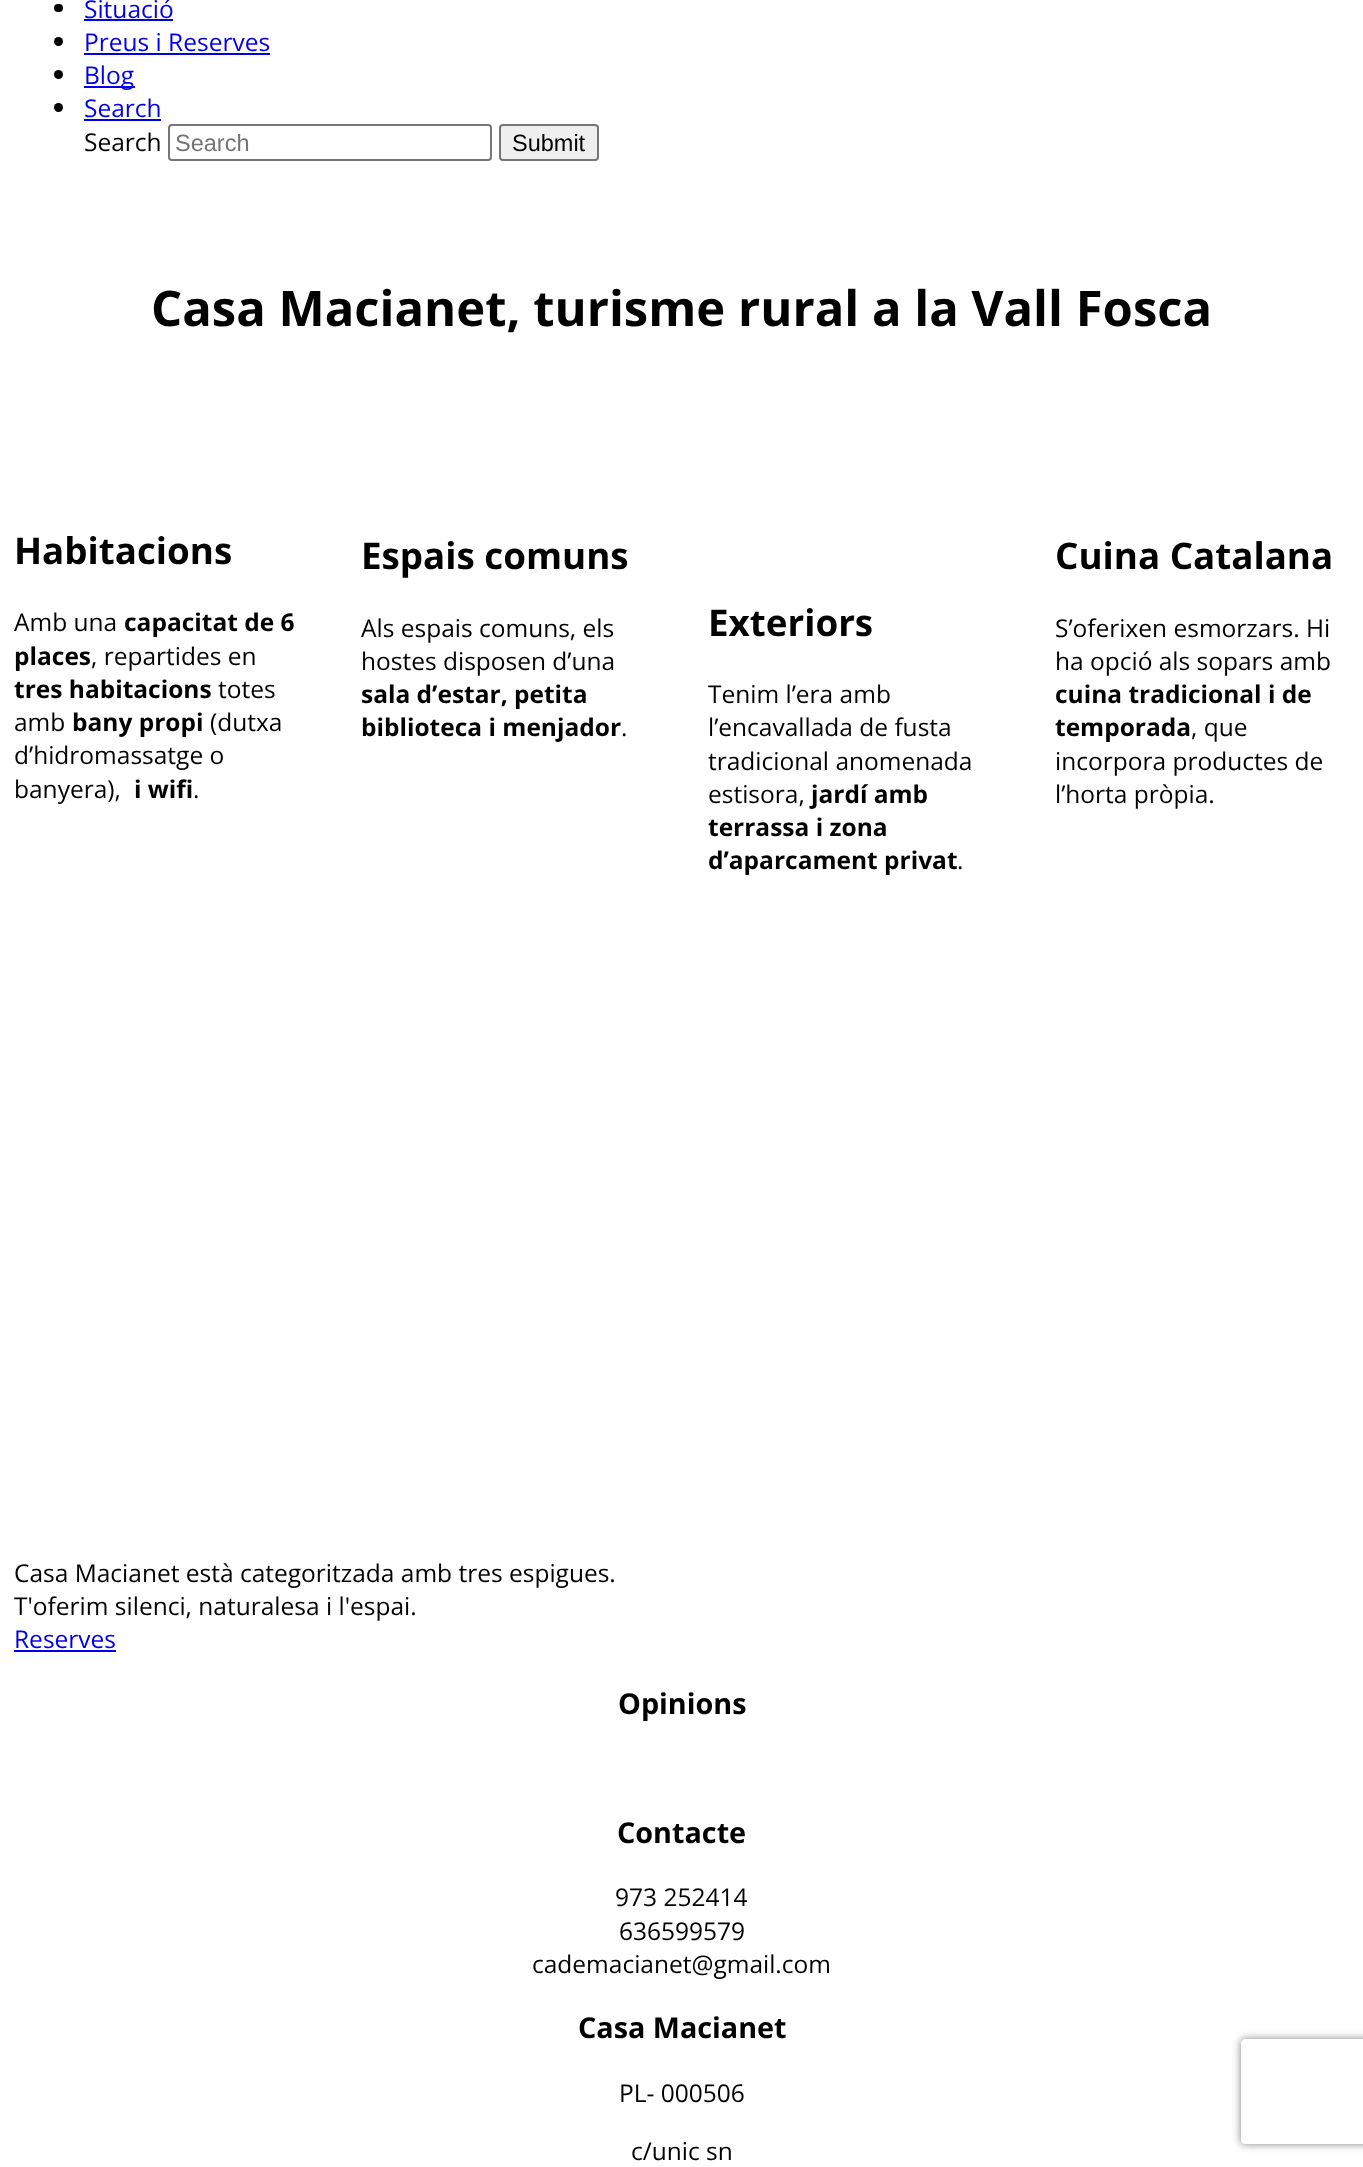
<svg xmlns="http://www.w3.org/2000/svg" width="1363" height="2167">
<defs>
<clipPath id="clip1"><path d="M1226 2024h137v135h-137zm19 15h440c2 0 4 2 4 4v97c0 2-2 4-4 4h-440c-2 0-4-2-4-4v-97c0-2 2-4 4-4z" clip-rule="evenodd"/></clipPath>
</defs>
<rect width="100%" height="100%" fill="#fff"/>
<rect x="54" y="4" width="9" height="8" rx="4" fill="#000"/>
<text x="84" y="18" style="font-family:Open Sans;font-size:24.5px;fill:#00e">Situació</text>
<rect x="84" y="19" width="89" height="2" fill="#00e"/>
<circle cx="58.5" cy="41.5" r="4.5" fill="#000"/>
<text x="84" y="51" style="font-family:Open Sans;font-size:24.5px;fill:#00e">Preus i Reserves</text>
<rect x="84" y="53" width="186" height="2" fill="#00e"/>
<circle cx="58.5" cy="74.5" r="4.5" fill="#000"/>
<rect x="84" y="86" width="51" height="2" fill="#00e"/>
<text x="84" y="84" style="font-family:Open Sans;font-size:24.5px;fill:#00e">Blog</text>
<circle cx="58.5" cy="107.5" r="4.5" fill="#000"/>
<text x="84" y="117" style="font-family:Open Sans;font-size:24.5px;fill:#00e">Search</text>
<rect x="84" y="119" width="77" height="2" fill="#00e"/>
<text x="84" y="151" style="font-family:Open Sans;font-size:24.5px;fill:#000">Search</text>
<rect x="169" y="125" width="322" height="35" rx="3" fill="none" stroke="#767676" stroke-width="2"/>
<text x="175" y="151" style="font-family:Liberation Sans;font-size:23.5px;fill:#757575">Search</text>
<rect x="500" y="125" width="98" height="35" rx="3" fill="#efefef" stroke="#767676" stroke-width="2"/>
<text x="512" y="151" style="font-family:Liberation Sans;font-size:23.5px;fill:#000">Submit</text>
<text x="151" y="326" style="font-family:Open Sans;font-size:49px;font-weight:bold;fill:#000">Casa Macianet, turisme rural a la Vall Fosca</text>
<text x="14" y="564" style="font-family:Open Sans;font-size:36.75px;font-weight:bold;fill:#000">Habitacions</text>
<text x="14" y="631" style="font-family:Open Sans;font-size:24.5px;fill:#000">Amb una</text>
<text x="124" y="631" style="font-family:Open Sans;font-size:24.5px;font-weight:bold;fill:#000">capacitat de 6</text>
<text x="14" y="665" style="font-family:Open Sans;font-size:24.5px;font-weight:bold;fill:#000">places</text>
<text x="91" y="665" style="font-family:Open Sans;font-size:24.5px;fill:#000">, repartides en</text>
<text x="14" y="698" style="font-family:Open Sans;font-size:24.5px;font-weight:bold;fill:#000">tres habitacions</text>
<text x="218" y="698" style="font-family:Open Sans;font-size:24.5px;fill:#000">totes</text>
<text x="14" y="731" style="font-family:Open Sans;font-size:24.5px;fill:#000">amb</text>
<text x="72" y="731" style="font-family:Open Sans;font-size:24.5px;font-weight:bold;fill:#000">bany propi</text>
<text x="210" y="731" style="font-family:Open Sans;font-size:24.5px;fill:#000">(dutxa</text>
<text x="14" y="764" style="font-family:Open Sans;font-size:24.5px;fill:#000">d’hidromassatge o</text>
<text x="14" y="798" style="font-family:Open Sans;font-size:24.5px;fill:#000">banyera),</text>
<text x="134" y="798" style="font-family:Open Sans;font-size:24.5px;font-weight:bold;fill:#000">i wifi</text>
<text x="193" y="798" style="font-family:Open Sans;font-size:24.5px;fill:#000">.</text>
<text x="361" y="569" style="font-family:Open Sans;font-size:36.75px;font-weight:bold;fill:#000">Espais comuns</text>
<text x="361" y="637" style="font-family:Open Sans;font-size:24.5px;fill:#000">Als espais comuns, els</text>
<text x="361" y="670" style="font-family:Open Sans;font-size:24.5px;fill:#000">hostes disposen d’una</text>
<text x="361" y="703" style="font-family:Open Sans;font-size:24.5px;font-weight:bold;fill:#000">sala d’estar, petita</text>
<text x="361" y="736" style="font-family:Open Sans;font-size:24.5px;font-weight:bold;fill:#000">biblioteca i menjador</text>
<text x="621" y="736" style="font-family:Open Sans;font-size:24.5px;fill:#000">.</text>
<text x="708" y="636" style="font-family:Open Sans;font-size:36.75px;font-weight:bold;fill:#000">Exteriors</text>
<text x="708" y="703" style="font-family:Open Sans;font-size:24.5px;fill:#000">Tenim l’era amb</text>
<text x="708" y="736" style="font-family:Open Sans;font-size:24.5px;fill:#000">l’encavallada de fusta</text>
<text x="708" y="770" style="font-family:Open Sans;font-size:24.5px;fill:#000">tradicional anomenada</text>
<text x="708" y="803" style="font-family:Open Sans;font-size:24.5px;fill:#000">estisora,</text>
<text x="811" y="803" style="font-family:Open Sans;font-size:24.5px;font-weight:bold;fill:#000">jardí amb</text>
<text x="708" y="836" style="font-family:Open Sans;font-size:24.5px;font-weight:bold;fill:#000">terrassa i zona</text>
<text x="708" y="869" style="font-family:Open Sans;font-size:24.5px;font-weight:bold;fill:#000">d’aparcament privat</text>
<text x="957" y="869" style="font-family:Open Sans;font-size:24.5px;fill:#000">.</text>
<text x="1055" y="569" style="font-family:Open Sans;font-size:36.75px;font-weight:bold;fill:#000">Cuina Catalana</text>
<text x="1055" y="637" style="font-family:Open Sans;font-size:24.5px;fill:#000">S’oferixen esmorzars. Hi</text>
<text x="1055" y="670" style="font-family:Open Sans;font-size:24.5px;fill:#000">ha opció als sopars amb</text>
<text x="1055" y="703" style="font-family:Open Sans;font-size:24.5px;font-weight:bold;fill:#000">cuina tradicional i de</text>
<text x="1055" y="736" style="font-family:Open Sans;font-size:24.5px;font-weight:bold;fill:#000">temporada</text>
<text x="1191" y="736" style="font-family:Open Sans;font-size:24.5px;fill:#000">, que</text>
<text x="1055" y="770" style="font-family:Open Sans;font-size:24.5px;fill:#000">incorpora productes de</text>
<text x="1055" y="803" style="font-family:Open Sans;font-size:24.5px;fill:#000">l’horta pròpia.</text>
<text x="14" y="1582" style="font-family:Open Sans;font-size:24.5px;fill:#000">Casa Macianet està categoritzada amb tres espigues.</text>
<text x="14" y="1615" style="font-family:Open Sans;font-size:24.5px;fill:#000">T'oferim silenci, naturalesa i l'espai.</text>
<text x="14" y="1648" style="font-family:Open Sans;font-size:24.5px;fill:#00e">Reserves</text>
<rect x="14" y="1650" width="102" height="2" fill="#00e"/>
<text x="618" y="1714" style="font-family:Open Sans;font-size:28.75px;font-weight:bold;fill:#000">Opinions</text>
<text x="617" y="1843" style="font-family:Open Sans;font-size:28.75px;font-weight:bold;fill:#000">Contacte</text>
<text x="615" y="1906" style="font-family:Open Sans;font-size:24.5px;fill:#000">973 252414</text>
<text x="619" y="1940" style="font-family:Open Sans;font-size:24.5px;fill:#000">636599579</text>
<text x="532" y="1973" style="font-family:Open Sans;font-size:24.5px;fill:#000">cademacianet@gmail.com</text>
<text x="578" y="2038" style="font-family:Open Sans;font-size:28.75px;font-weight:bold;fill:#000">Casa Macianet</text>
<text x="619" y="2102" style="font-family:Open Sans;font-size:24.5px;fill:#000">PL- 000506</text>
<text x="631" y="2160" style="font-family:Open Sans;font-size:24.5px;fill:#000">c/unic sn</text>
<g clip-path="url(#clip1)">
<rect x="1241" y="2039" width="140" height="105" rx="4" fill="#808080" filter="blur(4.5px)"/>
</g>
</svg>
